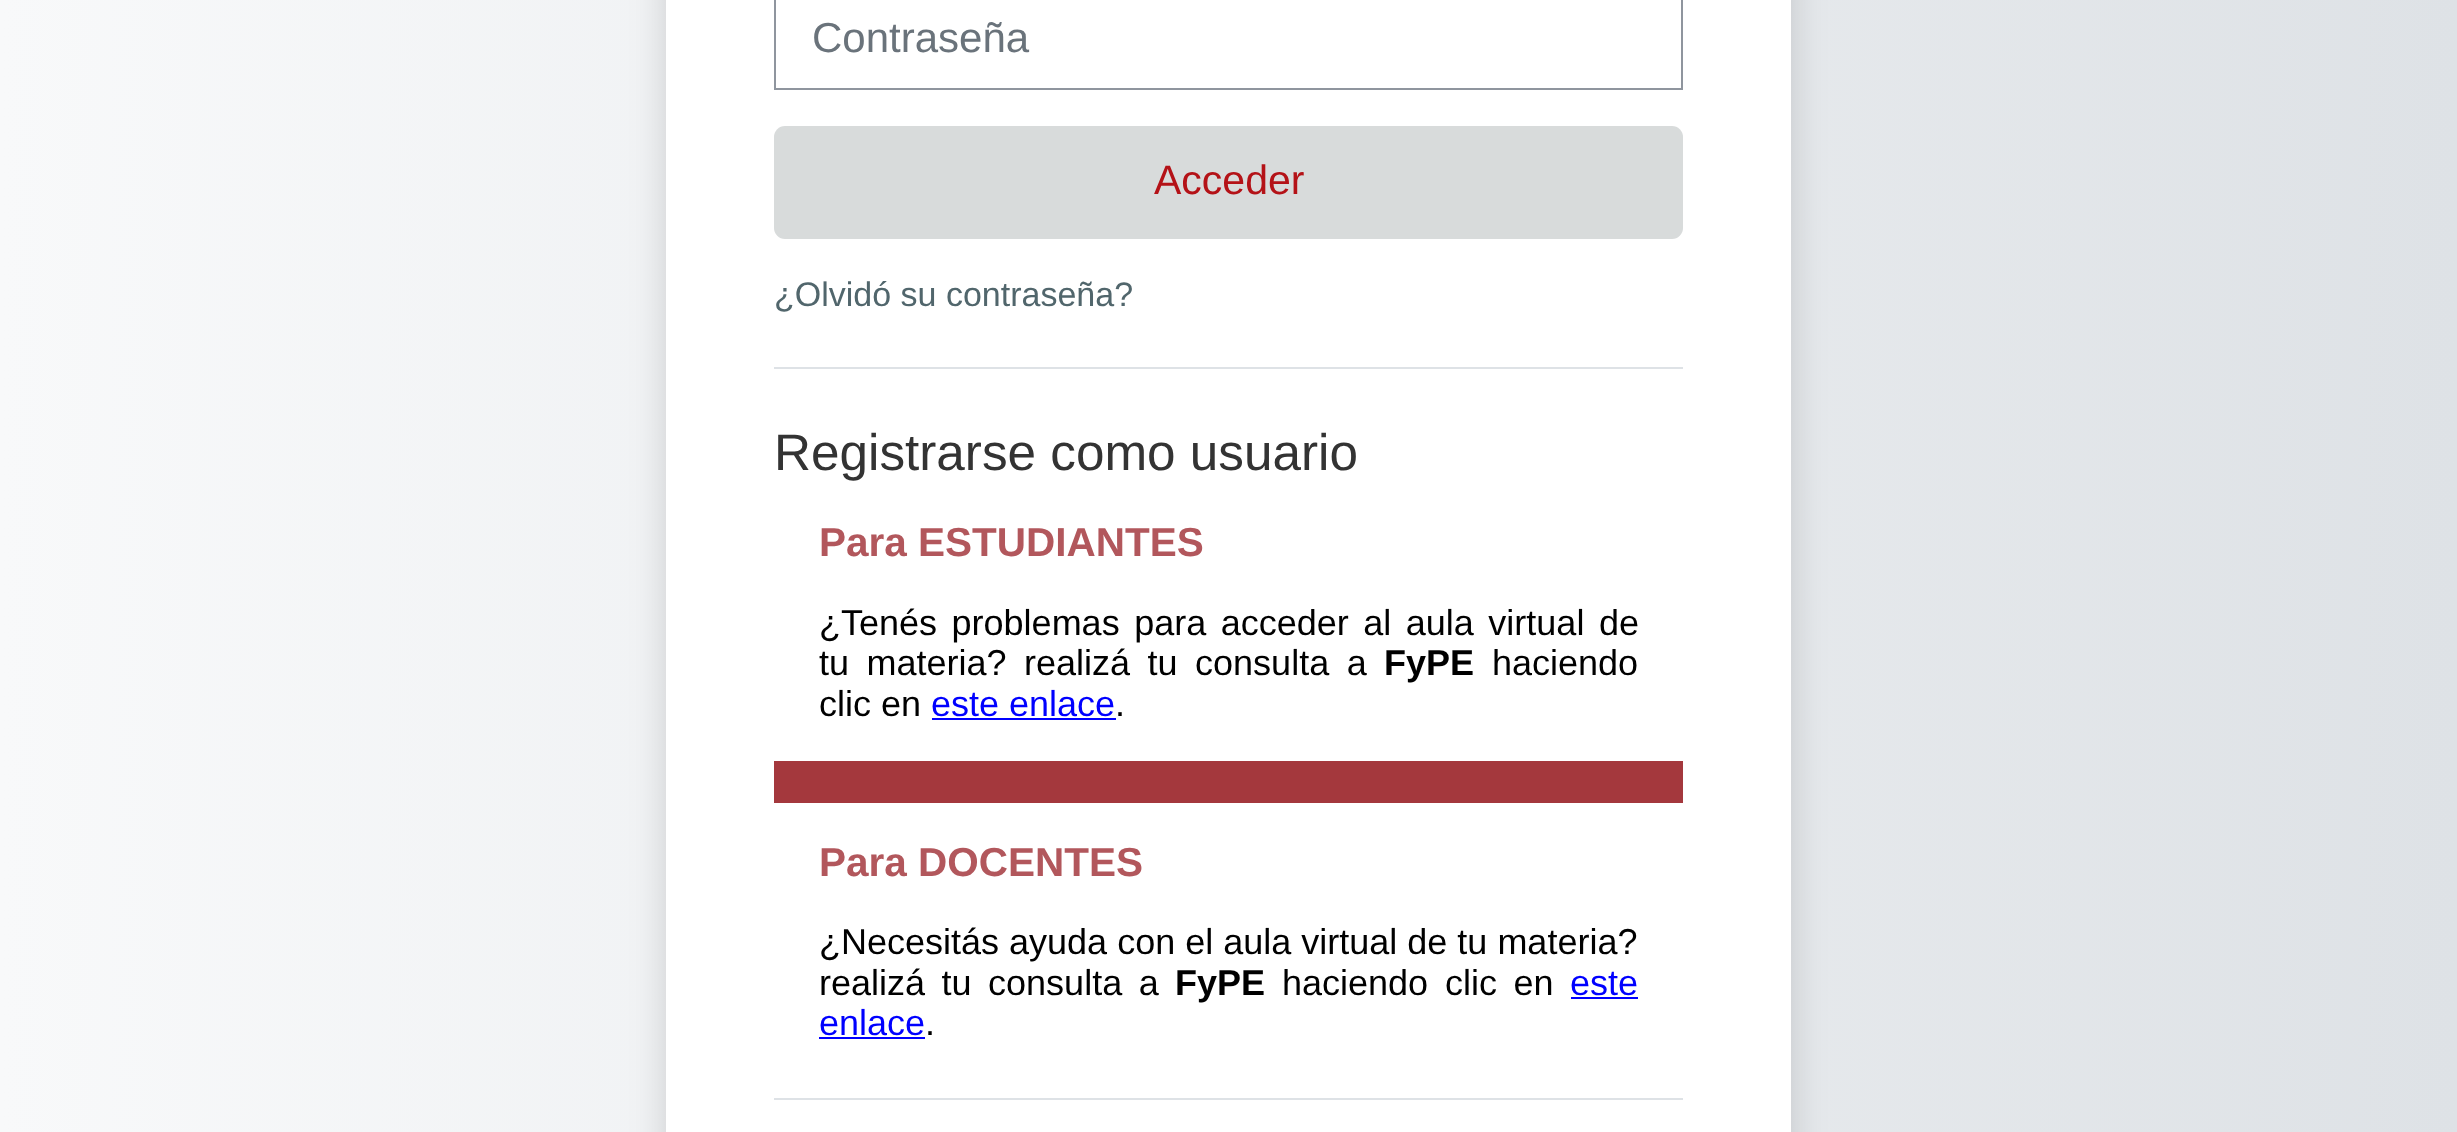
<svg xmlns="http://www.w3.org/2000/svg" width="2457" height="1132">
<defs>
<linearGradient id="g1" gradientUnits="userSpaceOnUse" x1="0" y1="550" x2="2457" y2="550"><stop offset="0" stop-color="#f8f9fa"/><stop offset="1" stop-color="#dee2e6"/></linearGradient>
</defs>
<rect width="100%" height="100%" fill="#fff"/>
<rect width="2457" height="1132" fill="url(#g1)"/>
<rect x="666" y="-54" width="1125" height="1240" fill="#00000026" filter="blur(18px)"/>
<rect x="666" width="1125" height="1132" fill="#fff"/>
<rect x="775" y="-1" width="907" height="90" fill="none" stroke="#8f959e" stroke-width="2"/>
<text x="812" y="52" style="font-family:Liberation Sans;font-size:42px;fill:#6a737b">Contraseña</text>
<rect x="774" y="126" width="909" height="113" rx="11" fill="#d8dbdb"/>
<text x="1154" y="194" style="font-family:Liberation Sans;font-size:41px;fill:#b41217">Acceder</text>
<text x="774" y="306" style="font-family:Liberation Sans;font-size:34px;fill:#51666c">¿Olvidó su contraseña?</text>
<rect x="774" y="367" width="909" height="2" fill="#dee2e6"/>
<text x="774" y="470" style="font-family:Liberation Sans;font-size:51.25px;fill:#333">Registrarse como usuario</text>
<text x="819" y="556" style="font-family:Liberation Sans;font-size:40.5px;font-weight:bold;fill:#b2575c">Para ESTUDIANTES</text>
<text x="819" y="635" word-spacing="4.5" style="font-family:Liberation Sans;font-size:36px;fill:#000">¿Tenés problemas para acceder al aula virtual de</text>
<text x="819" y="675" word-spacing="7.5" style="font-family:Liberation Sans;font-size:36px;fill:#000">tu materia?</text>
<text x="1024" y="675" word-spacing="7.5" style="font-family:Liberation Sans;font-size:36px;fill:#000">realizá tu consulta a</text>
<text x="1384" y="675" style="font-family:Liberation Sans;font-size:36px;font-weight:bold;fill:#000">FyPE</text>
<text x="1492" y="675" style="font-family:Liberation Sans;font-size:36px;fill:#000">haciendo</text>
<text x="819" y="716" style="font-family:Liberation Sans;font-size:36px;fill:#000">clic en</text>
<text x="931" y="716" style="font-family:Liberation Sans;font-size:36px;fill:#00f">este enlace</text>
<text x="1115" y="716" style="font-family:Liberation Sans;font-size:36px;fill:#000">.</text>
<rect x="932" y="718" width="184" height="2" fill="#00f"/>
<rect x="774" y="761" width="909" height="42" fill="#a4383d"/>
<text x="819" y="876" style="font-family:Liberation Sans;font-size:40.5px;font-weight:bold;fill:#b2575c">Para DOCENTES</text>
<text x="819" y="954" style="font-family:Liberation Sans;font-size:36px;fill:#000">¿Necesitás ayuda con el aula virtual de tu materia?</text>
<text x="819" y="995" word-spacing="6.5" style="font-family:Liberation Sans;font-size:36px;fill:#000">realizá tu consulta a</text>
<text x="1175" y="995" style="font-family:Liberation Sans;font-size:36px;font-weight:bold;fill:#000">FyPE</text>
<text x="1282" y="995" style="font-family:Liberation Sans;font-size:36px;fill:#000">haciendo</text>
<text x="1445" y="995" word-spacing="6.5" style="font-family:Liberation Sans;font-size:36px;fill:#000">clic en</text>
<text x="1570" y="995" style="font-family:Liberation Sans;font-size:36px;fill:#00f">este</text>
<rect x="1571" y="997" width="67" height="2" fill="#00f"/>
<text x="819" y="1035" style="font-family:Liberation Sans;font-size:36px;fill:#00f">enlace</text>
<text x="925" y="1035" style="font-family:Liberation Sans;font-size:36px;fill:#000">.</text>
<rect x="819" y="1037" width="106" height="2" fill="#00f"/>
<rect x="774" y="1098" width="909" height="2" fill="#dee2e6"/>
</svg>
